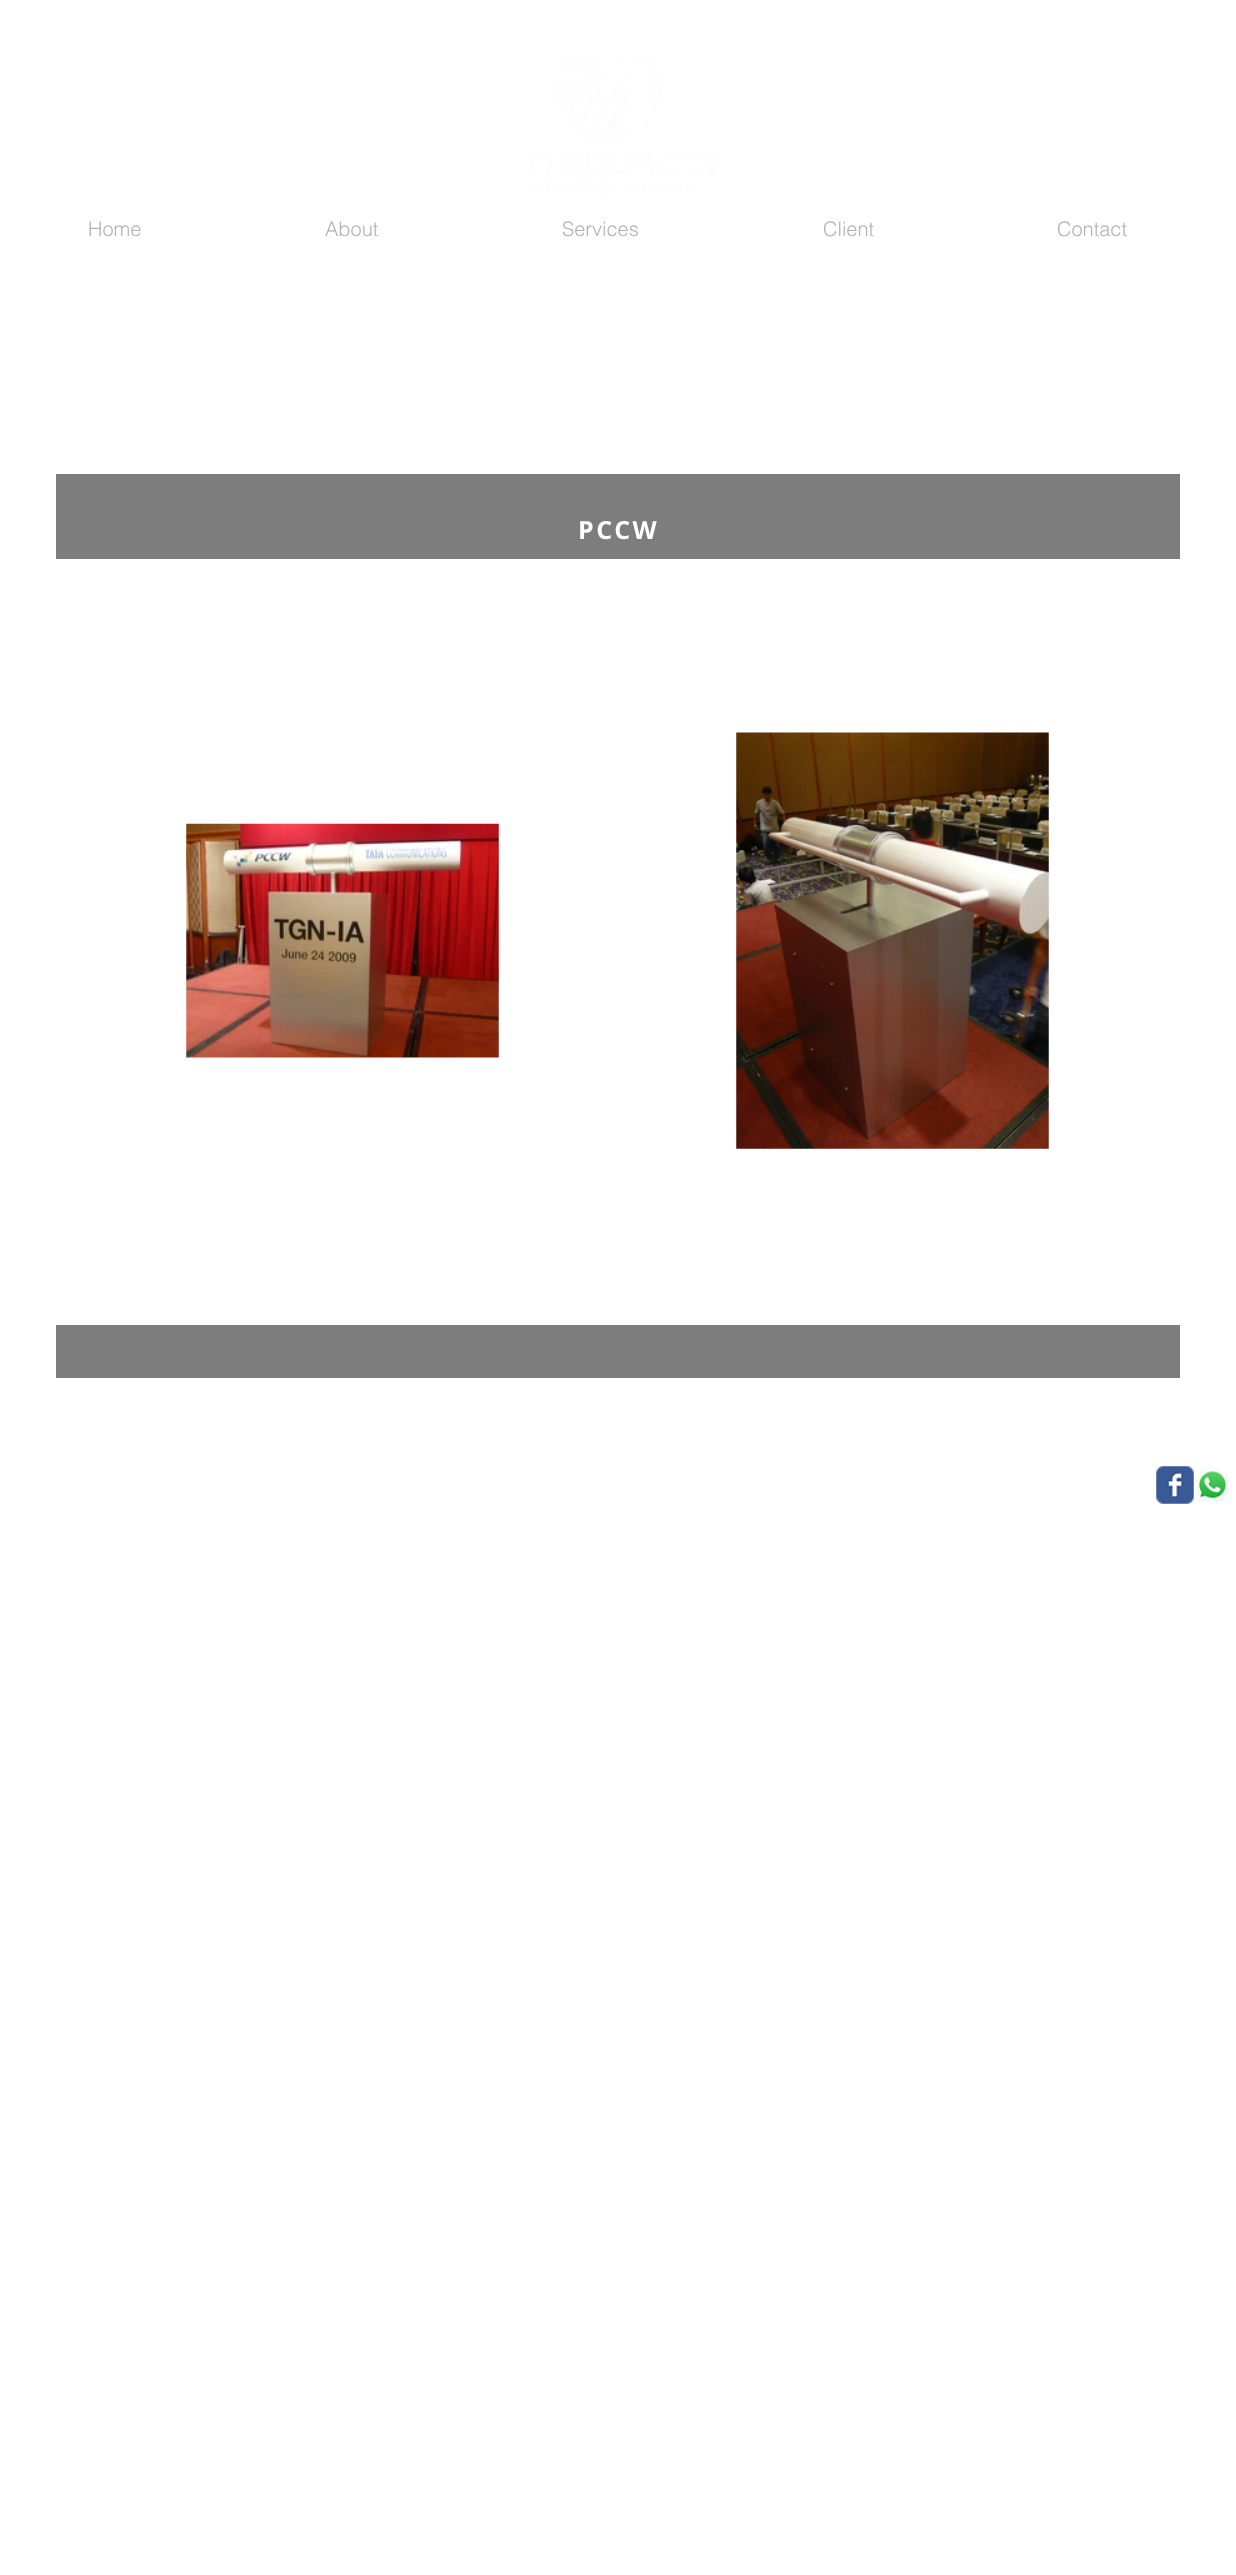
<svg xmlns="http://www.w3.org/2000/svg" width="1236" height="2575">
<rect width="100%" height="100%" fill="#fff"/>
<image x="531" y="55" width="184" height="138" href="media/1.png"/>
<text x="88" y="236" style="font-family:helvetica;font-size:20px;font-weight:300;fill:#b2b2b2">Home</text>
<text x="325" y="236" style="font-family:helvetica;font-size:20px;font-weight:300;fill:#b2b2b2">About</text>
<text x="562" y="236" style="font-family:helvetica;font-size:20px;font-weight:300;fill:#b2b2b2">Services</text>
<text x="823" y="236" style="font-family:helvetica;font-size:20px;font-weight:300;fill:#b2b2b2">Client</text>
<text x="1057" y="236" style="font-family:helvetica;font-size:20px;font-weight:300;fill:#b2b2b2">Contact</text>
<rect x="56" y="474" width="1124" height="85" fill="#7d7d7d"/>
<text x="578" y="539" style="font-family:Open Sans;font-size:25px;font-weight:bold;letter-spacing:2.5px;fill:#fff">PCCW</text>
<image x="186" y="823" width="313" height="235" href="media/2.png"/>
<image x="736" y="732" width="313" height="417" href="media/3.png"/>
<rect x="56" y="1325" width="1124" height="53" fill="#7d7d7d"/>
<image x="1156" y="1466" width="38" height="38" href="media/4.png"/>
<image x="1195" y="1467" width="35" height="35" href="media/5.png"/>
</svg>
